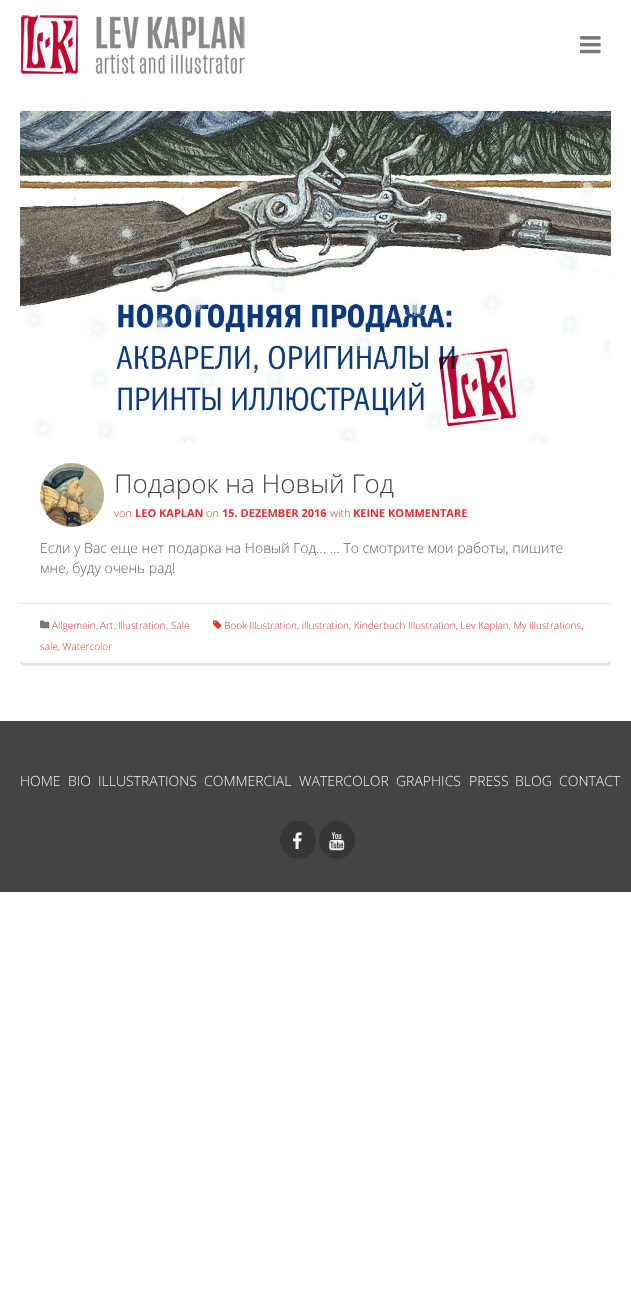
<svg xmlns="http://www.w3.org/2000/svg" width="631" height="1294">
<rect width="100%" height="100%" fill="#fff"/>
<image x="21" y="15" width="224" height="59" href="media/1.png"/>
<image x="580" y="36" width="21" height="18" href="media/2.png"/>
<image x="20" y="111" width="591" height="332" href="media/3.png"/>
<image x="40" y="463" width="64" height="64" href="media/4.png"/>
<text x="114" y="493" style="font-family:Open Sans;font-size:26px;font-weight:300;fill:#444">Подарок на Новый Год</text>
<text x="114" y="517" style="font-family:Open Sans;font-size:11px;font-weight:300;fill:#d33">von</text>
<text x="135" y="517" style="font-family:Open Sans;font-size:11px;font-weight:bold;fill:#d33">LEO KAPLAN</text>
<text x="206" y="517" style="font-family:Open Sans;font-size:11px;font-weight:300;fill:#d33">on</text>
<text x="222" y="517" style="font-family:Open Sans;font-size:11px;font-weight:bold;fill:#d33">15. DEZEMBER 2016</text>
<text x="330" y="517" style="font-family:Open Sans;font-size:11px;font-weight:300;fill:#d33">with</text>
<text x="353" y="517" style="font-family:Open Sans;font-size:11px;font-weight:bold;fill:#d33">KEINE KOMMENTARE</text>
<text x="40" y="553" style="font-family:Open Sans;font-size:14px;font-weight:300;fill:#606060">Если у Вас еще нет подарка на Новый Год… … То смотрите мои работы, пишите</text>
<text x="40" y="573" style="font-family:Open Sans;font-size:14px;font-weight:300;fill:#606060">мне, буду очень рад!</text>
<path d="M20 658c0 4 0 8 5 8h581c5 0 5-4 5-8c0 3-2 5-5 5h-581c-3 0-5-2-5-5z" fill="#e6e6e6"/>
<rect x="20" y="603" width="591" height="1" fill="#e6e6e6"/>
<image x="213" y="620" width="9" height="9" href="media/5.png"/>
<text x="224" y="629" style="font-family:Open Sans;font-size:10px;font-weight:300;fill:#d33">Book Illustration, illustration, Kinderbuch Illustration, Lev Kaplan, My illustrations,</text>
<text x="40" y="650" style="font-family:Open Sans;font-size:10px;font-weight:300;fill:#d33">sale, Watercolor</text>
<image x="40" y="620" width="10" height="9" href="media/6.png"/>
<text x="52" y="629" style="font-family:Open Sans;font-size:10px;font-weight:300;fill:#d33">Allgemein</text>
<text x="96" y="629" style="font-family:Open Sans;font-size:10px;font-weight:300;fill:#777">,</text>
<text x="100" y="629" style="font-family:Open Sans;font-size:10px;font-weight:300;fill:#d33">Art</text>
<text x="114" y="629" style="font-family:Open Sans;font-size:10px;font-weight:300;fill:#777">,</text>
<text x="118" y="629" style="font-family:Open Sans;font-size:10px;font-weight:300;fill:#d33">Illustration</text>
<text x="166" y="629" style="font-family:Open Sans;font-size:10px;font-weight:300;fill:#777">,</text>
<text x="171" y="629" style="font-family:Open Sans;font-size:10px;font-weight:300;fill:#d33">Sale</text>
<rect y="721" width="631" height="171" fill="#444"/>
<text x="20" y="786" style="font-family:Open Sans;font-size:14px;font-weight:300;fill:#f2f2f2">HOME</text>
<text x="68" y="786" style="font-family:Open Sans;font-size:14px;font-weight:300;fill:#f2f2f2">BIO</text>
<text x="98" y="786" style="font-family:Open Sans;font-size:14px;font-weight:300;fill:#f2f2f2">ILLUSTRATIONS</text>
<text x="204" y="786" style="font-family:Open Sans;font-size:14px;font-weight:300;fill:#f2f2f2">COMMERCIAL</text>
<text x="299" y="786" style="font-family:Open Sans;font-size:14px;font-weight:300;fill:#f2f2f2">WATERCOLOR</text>
<text x="396" y="786" style="font-family:Open Sans;font-size:14px;font-weight:300;fill:#f2f2f2">GRAPHICS</text>
<text x="469" y="786" style="font-family:Open Sans;font-size:14px;font-weight:300;fill:#f2f2f2">PRESS</text>
<text x="515" y="786" style="font-family:Open Sans;font-size:14px;font-weight:300;fill:#f2f2f2">BLOG</text>
<text x="559" y="786" style="font-family:Open Sans;font-size:14px;font-weight:300;fill:#f2f2f2">CONTACT</text>
<ellipse cx="298" cy="840" rx="18" ry="19" fill="#363636"/>
<image x="292" y="832" width="10" height="17" href="media/7.png"/>
<ellipse cx="337" cy="840" rx="18" ry="19" fill="#363636"/>
<image x="329" y="832" width="16" height="19" href="media/8.png"/>
</svg>
